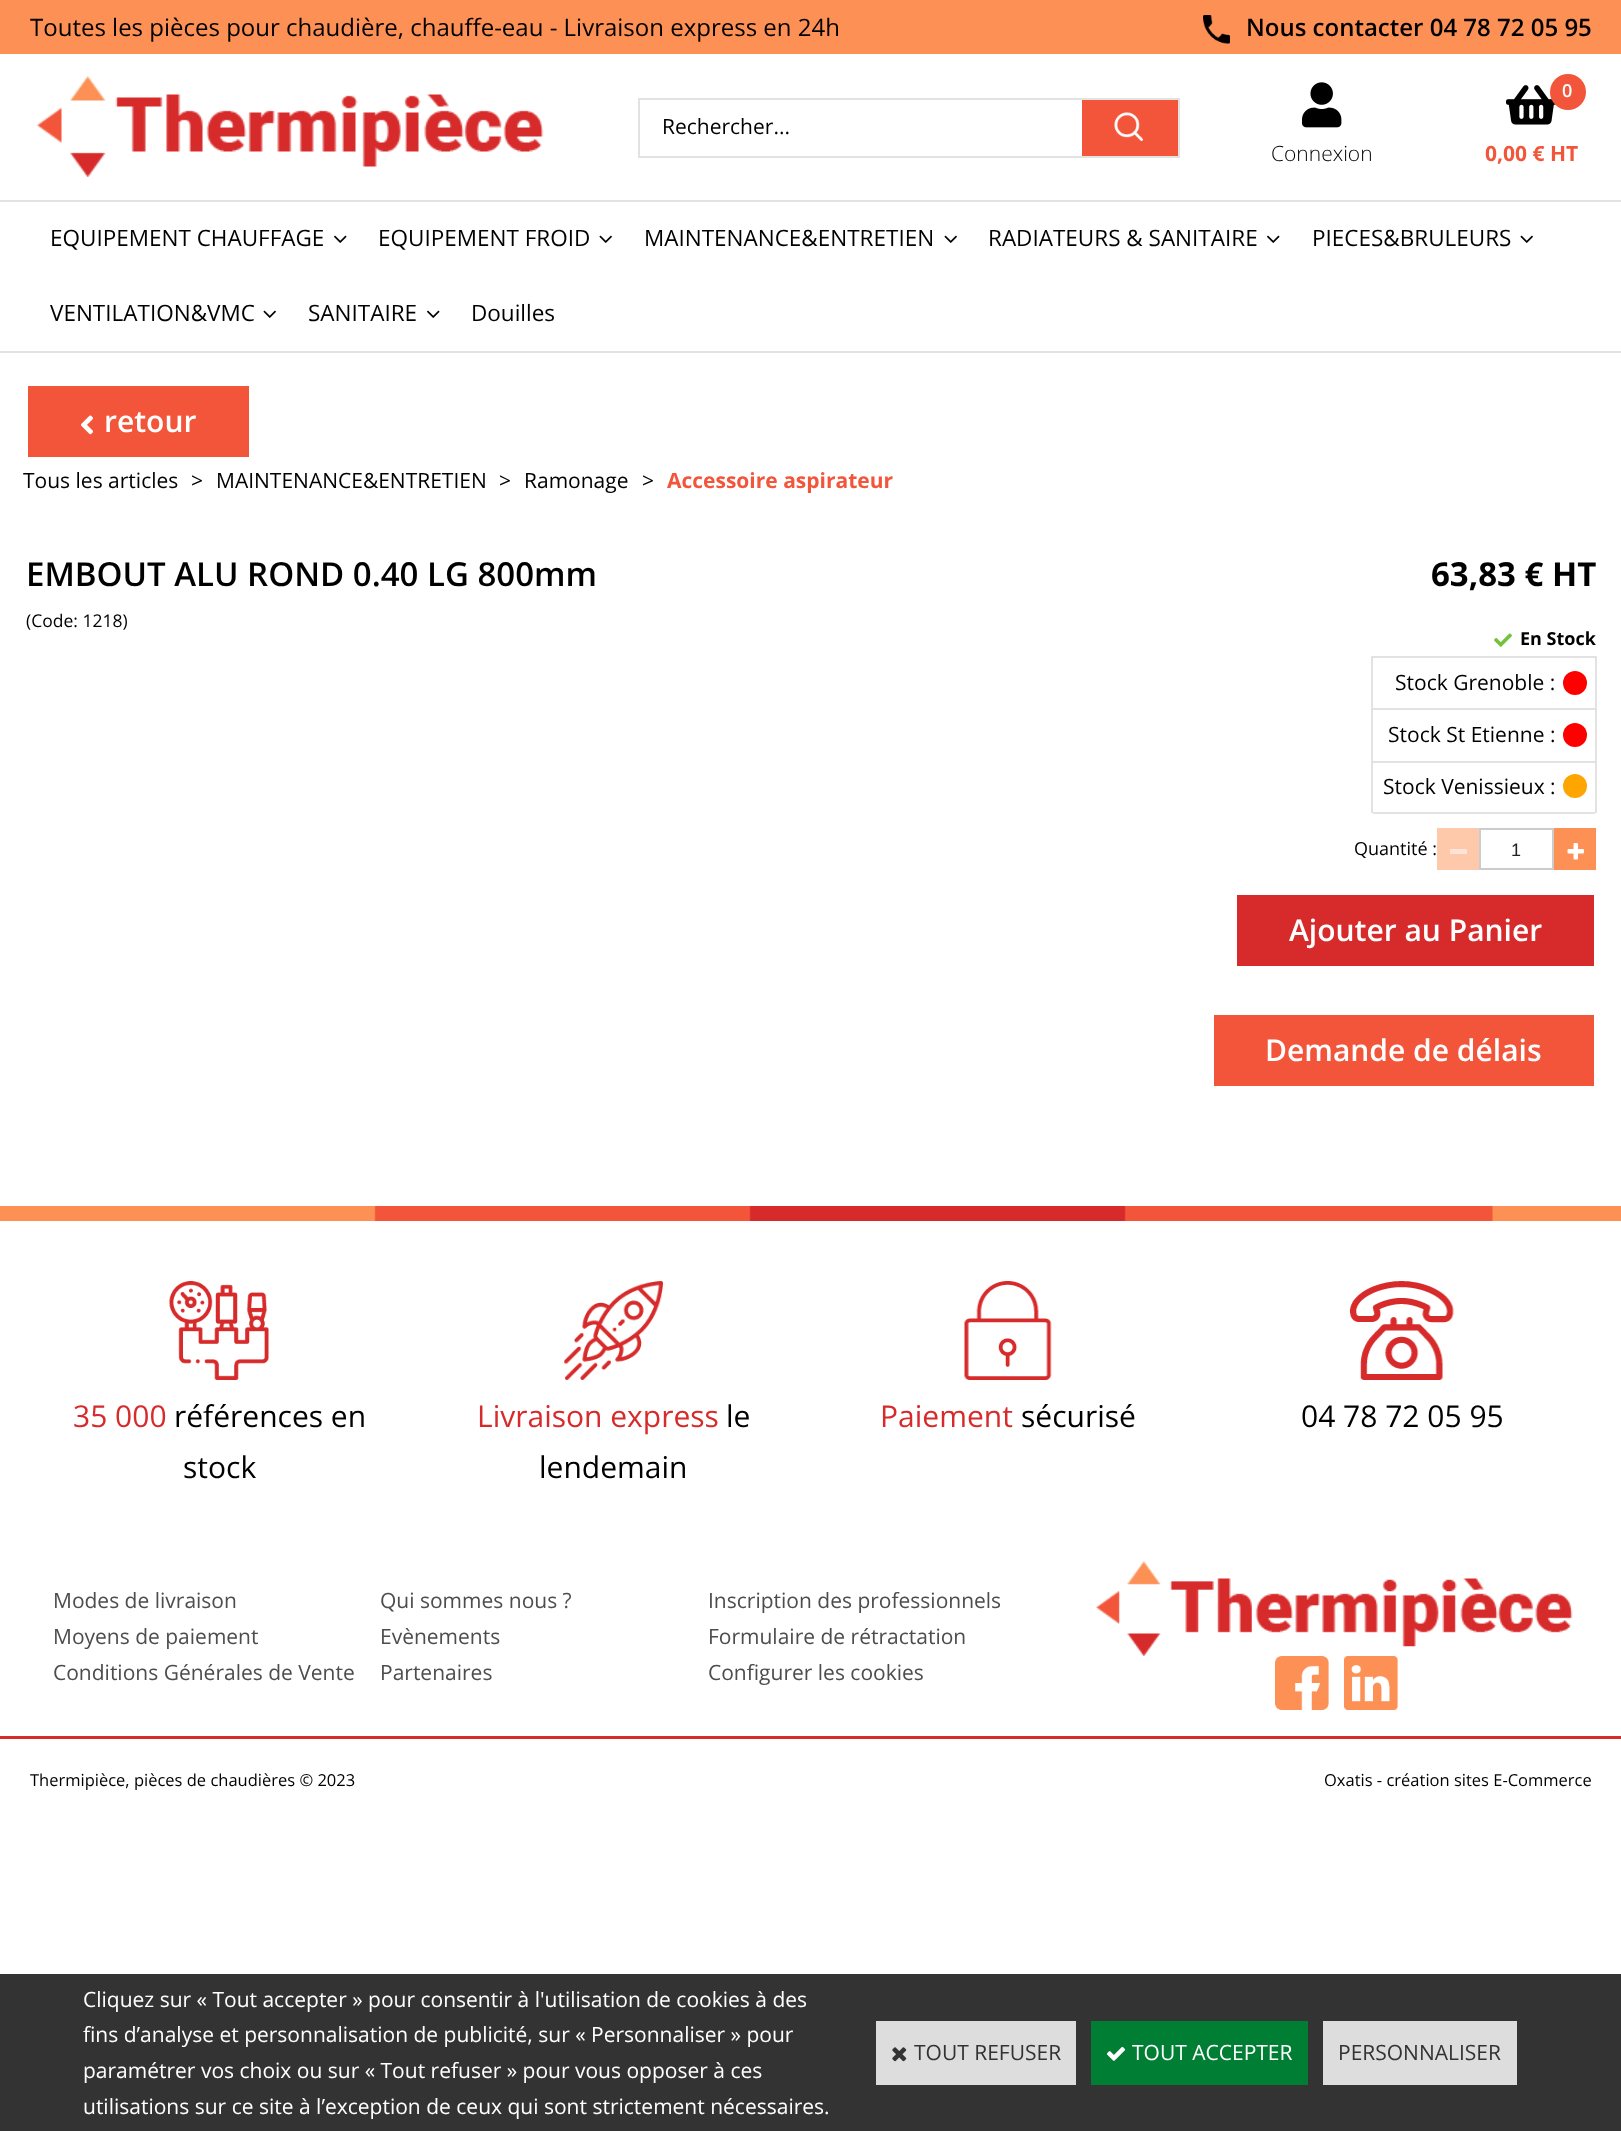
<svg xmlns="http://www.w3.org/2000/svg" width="1621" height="2131">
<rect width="100%" height="100%" fill="#fff"/>
<rect width="1621" height="54" fill="#fd9055"/>
<text x="30" y="36" style="font-family:Open Sans;font-size:24px;fill:#000">Toutes les pièces pour chaudière, chauffe-eau - Livraison express en 24h</text>
<image x="1203" y="15" width="27" height="29" href="media/1.png"/>
<text x="1246" y="36" style="font-family:Open Sans;font-size:24px;font-weight:600;fill:#000">Nous contacter 04 78 72 05 95</text>
<image x="37" y="76" width="507" height="101" href="media/2.png"/>
<rect x="638" y="98" width="541" height="2" fill="#e2e2e2"/>
<rect x="638" y="156" width="444" height="2" fill="#e2e2e2"/>
<rect x="638" y="98" width="2" height="60" fill="#e2e2e2"/>
<text x="662" y="134" style="font-family:Open Sans;font-size:21px;fill:#000">Rechercher...</text>
<rect x="1082" y="100" width="96" height="56" fill="#f3553a"/>
<image x="1114" y="112" width="29" height="29" href="media/3.png"/>
<rect x="1178" y="98" width="2" height="60" fill="#e2e2e2"/>
<rect x="1082" y="156" width="97" height="2" fill="#e2e2e2"/>
<image x="1302" y="82" width="40" height="46" href="media/4.png"/>
<text x="1271" y="161" style="font-family:Open Sans;font-size:21px;font-weight:300;fill:#000">Connexion</text>
<image x="1506" y="85" width="50" height="40" href="media/5.png"/>
<circle cx="1568" cy="92" r="18" fill="#f3553a"/>
<text x="1562" y="97" style="font-family:Open Sans;font-size:18px;font-weight:600;fill:#fff">0</text>
<text x="1485" y="161" style="font-family:Open Sans;font-size:21px;font-weight:bold;fill:#f3553a">0,00 € HT</text>
<rect y="200" width="1621" height="2" fill="#e2e2e2"/>
<rect y="351" width="1621" height="2" fill="#e2e2e2"/>
<text x="50" y="246" style="font-family:Open Sans;font-size:22.5px;fill:#000">EQUIPEMENT CHAUFFAGE</text>
<image x="334" y="235" width="13" height="8" href="media/6.png"/>
<text x="378" y="246" style="font-family:Open Sans;font-size:22.5px;fill:#000">EQUIPEMENT FROID</text>
<image x="599" y="235" width="13" height="8" href="media/7.png"/>
<text x="644" y="246" style="font-family:Open Sans;font-size:22.5px;fill:#000">MAINTENANCE&amp;ENTRETIEN</text>
<image x="944" y="235" width="13" height="8" href="media/7.png"/>
<text x="988" y="246" style="font-family:Open Sans;font-size:22.5px;fill:#000">RADIATEURS &amp; SANITAIRE</text>
<image x="1267" y="235" width="13" height="8" href="media/6.png"/>
<text x="1312" y="246" style="font-family:Open Sans;font-size:22.5px;fill:#000">PIECES&amp;BRULEURS</text>
<image x="1520" y="235" width="13" height="8" href="media/7.png"/>
<text x="50" y="321" style="font-family:Open Sans;font-size:22.5px;fill:#000">VENTILATION&amp;VMC</text>
<image x="263" y="310" width="13" height="8" href="media/7.png"/>
<text x="308" y="321" style="font-family:Open Sans;font-size:22.5px;fill:#000">SANITAIRE</text>
<image x="427" y="310" width="13" height="8" href="media/6.png"/>
<text x="471" y="321" style="font-family:Open Sans;font-size:22.5px;fill:#000">Douilles</text>
<rect x="28" y="386" width="221" height="71" fill="#f3553a"/>
<image x="81" y="415" width="12" height="20" href="media/8.png"/>
<text x="104" y="432" style="font-family:Open Sans;font-size:30px;font-weight:600;fill:#fff">retour</text>
<text x="23" y="488" style="font-family:Open Sans;font-size:21px;fill:#000">Tous les articles</text>
<text x="191" y="488" style="font-family:Open Sans;font-size:21px;fill:#000">&gt;</text>
<text x="216" y="488" style="font-family:Open Sans;font-size:21px;fill:#000">MAINTENANCE&amp;ENTRETIEN</text>
<text x="499" y="488" style="font-family:Open Sans;font-size:21px;fill:#000">&gt;</text>
<text x="524" y="488" style="font-family:Open Sans;font-size:21px;fill:#000">Ramonage</text>
<text x="642" y="488" style="font-family:Open Sans;font-size:21px;fill:#000">&gt;</text>
<text x="667" y="488" style="font-family:Open Sans;font-size:21px;font-weight:bold;fill:#f3553a">Accessoire aspirateur</text>
<text x="26" y="586" style="font-family:Open Sans;font-size:33px;font-weight:600;fill:#000">EMBOUT ALU ROND 0.40 LG 800mm</text>
<text x="26" y="627" style="font-family:Open Sans;font-size:17.5px;fill:#000">(Code: 1218)</text>
<text x="1431" y="586" style="font-family:Open Sans;font-size:33px;font-weight:bold;fill:#000">63,83 € HT</text>
<image x="1494" y="633" width="18" height="14" href="media/9.png"/>
<text x="1520" y="645" style="font-family:Open Sans;font-size:18px;font-weight:bold;fill:#000">En Stock</text>
<rect x="1371" y="656" width="225" height="2" fill="#e2e2e2"/>
<rect x="1595" y="656" width="2" height="157" fill="#e2e2e2"/>
<rect x="1371" y="656" width="2" height="157" fill="#e2e2e2"/>
<rect x="1373" y="708" width="222" height="2" fill="#e2e2e2"/>
<text x="1395" y="690" style="font-family:Open Sans;font-size:21px;fill:#000">Stock Grenoble :</text>
<circle cx="1575" cy="683" r="12" fill="#f00"/>
<rect x="1373" y="761" width="222" height="2" fill="#e2e2e2"/>
<text x="1388" y="742" style="font-family:Open Sans;font-size:21px;fill:#000">Stock St Etienne :</text>
<circle cx="1575" cy="735" r="12" fill="#f00"/>
<rect x="1373" y="812" width="222" height="2" fill="#e2e2e2"/>
<text x="1383" y="794" style="font-family:Open Sans;font-size:21px;fill:#000">Stock Venissieux :</text>
<circle cx="1575" cy="786" r="12" fill="#ffa500"/>
<text x="1354" y="855" style="font-family:Open Sans;font-size:18px;fill:#000">Quantité :</text>
<rect x="1437" y="828" width="42" height="42" fill="#fec8aa"/>
<rect x="1450" y="849" width="17" height="5" fill="#ffe4d5"/>
<rect x="1480" y="829" width="73" height="40" fill="none" stroke="#ccc" stroke-width="2"/>
<text x="1511" y="856" style="font-family:Liberation Sans;font-size:18px;fill:#212121">1</text>
<rect x="1554" y="828" width="42" height="42" fill="#fd9055"/>
<image x="1567" y="843" width="17" height="17" href="media/10.png"/>
<rect x="1237" y="895" width="357" height="71" fill="#d72b2b"/>
<text x="1289" y="941" style="font-family:Open Sans;font-size:30px;font-weight:600;fill:#fff">Ajouter au Panier</text>
<rect x="1214" y="1015" width="380" height="71" fill="#f3553a"/>
<text x="1265" y="1061" style="font-family:Open Sans;font-size:30px;font-weight:600;fill:#fff">Demande de délais</text>
<rect y="1736" width="1621" height="3" fill="#d72b2b"/>
<image x="0" y="1206" width="1621" height="15" href="media/11.png"/>
<image x="169" y="1281" width="100" height="99" href="media/12.png"/>
<text x="73" y="1427" style="font-family:Open Sans;font-size:30px;fill:#d72b2b">35 000</text>
<text x="174" y="1427" style="font-family:Open Sans;font-size:30px;fill:#000">références en</text>
<text x="183" y="1478" style="font-family:Open Sans;font-size:30px;fill:#000">stock</text>
<image x="564" y="1281" width="99" height="99" href="media/13.png"/>
<text x="477" y="1427" style="font-family:Open Sans;font-size:30px;fill:#d72b2b">Livraison express</text>
<text x="726" y="1427" style="font-family:Open Sans;font-size:30px;fill:#000">le</text>
<text x="539" y="1478" style="font-family:Open Sans;font-size:30px;fill:#000">lendemain</text>
<image x="964" y="1281" width="88" height="99" href="media/14.png"/>
<text x="880" y="1427" style="font-family:Open Sans;font-size:30px;fill:#d72b2b">Paiement</text>
<text x="1021" y="1427" style="font-family:Open Sans;font-size:30px;fill:#000">sécurisé</text>
<image x="1350" y="1281" width="104" height="99" href="media/15.png"/>
<text x="1301" y="1427" style="font-family:Open Sans;font-size:30px;fill:#000">04 78 72 05 95</text>
<text x="53" y="1608" style="font-family:Open Sans;font-size:21px;fill:#4d4d4d">Modes de livraison</text>
<text x="53" y="1644" style="font-family:Open Sans;font-size:21px;fill:#4d4d4d">Moyens de paiement</text>
<text x="53" y="1680" style="font-family:Open Sans;font-size:21px;fill:#4d4d4d">Conditions Générales de Vente</text>
<text x="380" y="1608" style="font-family:Open Sans;font-size:21px;fill:#4d4d4d">Qui sommes nous ?</text>
<text x="380" y="1644" style="font-family:Open Sans;font-size:21px;fill:#4d4d4d">Evènements</text>
<text x="380" y="1680" style="font-family:Open Sans;font-size:21px;fill:#4d4d4d">Partenaires</text>
<text x="708" y="1608" style="font-family:Open Sans;font-size:21px;fill:#4d4d4d">Inscription des professionnels</text>
<text x="708" y="1644" style="font-family:Open Sans;font-size:21px;fill:#4d4d4d">Formulaire de rétractation</text>
<text x="708" y="1680" style="font-family:Open Sans;font-size:21px;fill:#4d4d4d">Configurer les cookies</text>
<image x="1096" y="1561" width="477" height="95" href="media/16.png"/>
<image x="1275" y="1656" width="54" height="54" href="media/17.png"/>
<image x="1344" y="1656" width="54" height="54" href="media/18.png"/>
<text x="30" y="1786" style="font-family:Open Sans;font-size:16.5px;fill:#000">Thermipièce, pièces de chaudières © 2023</text>
<text x="1324" y="1786" style="font-family:Open Sans;font-size:16.5px;fill:#000">Oxatis - création sites E-Commerce</text>
<rect y="1974" width="1621" height="157" fill="#333"/>
<text x="83" y="2007" style="font-family:Open Sans;font-size:21px;fill:#fff">Cliquez sur « Tout accepter » pour consentir à l'utilisation de cookies à des</text>
<text x="83" y="2042" style="font-family:Open Sans;font-size:21px;fill:#fff">fins d’analyse et personnalisation de publicité, sur « Personnaliser » pour</text>
<text x="83" y="2078" style="font-family:Open Sans;font-size:21px;fill:#fff">paramétrer vos choix ou sur « Tout refuser » pour vous opposer à ces</text>
<text x="83" y="2114" style="font-family:Open Sans;font-size:21px;fill:#fff">utilisations sur ce site à l’exception de ceux qui sont strictement nécessaires.</text>
<rect x="876" y="2021" width="200" height="64" fill="#ddd"/>
<image x="892" y="2047" width="15" height="15" href="media/19.png"/>
<text x="914" y="2060" style="font-family:Open Sans;font-size:21px;fill:#333">TOUT REFUSER</text>
<rect x="1091" y="2021" width="217" height="64" fill="#007e33"/>
<image x="1106" y="2046" width="20" height="15" href="media/20.png"/>
<text x="1132" y="2060" style="font-family:Open Sans;font-size:21px;fill:#fff">TOUT ACCEPTER</text>
<rect x="1323" y="2021" width="194" height="64" fill="#ddd"/>
<text x="1338" y="2060" style="font-family:Open Sans;font-size:21px;fill:#333">PERSONNALISER</text>
</svg>
